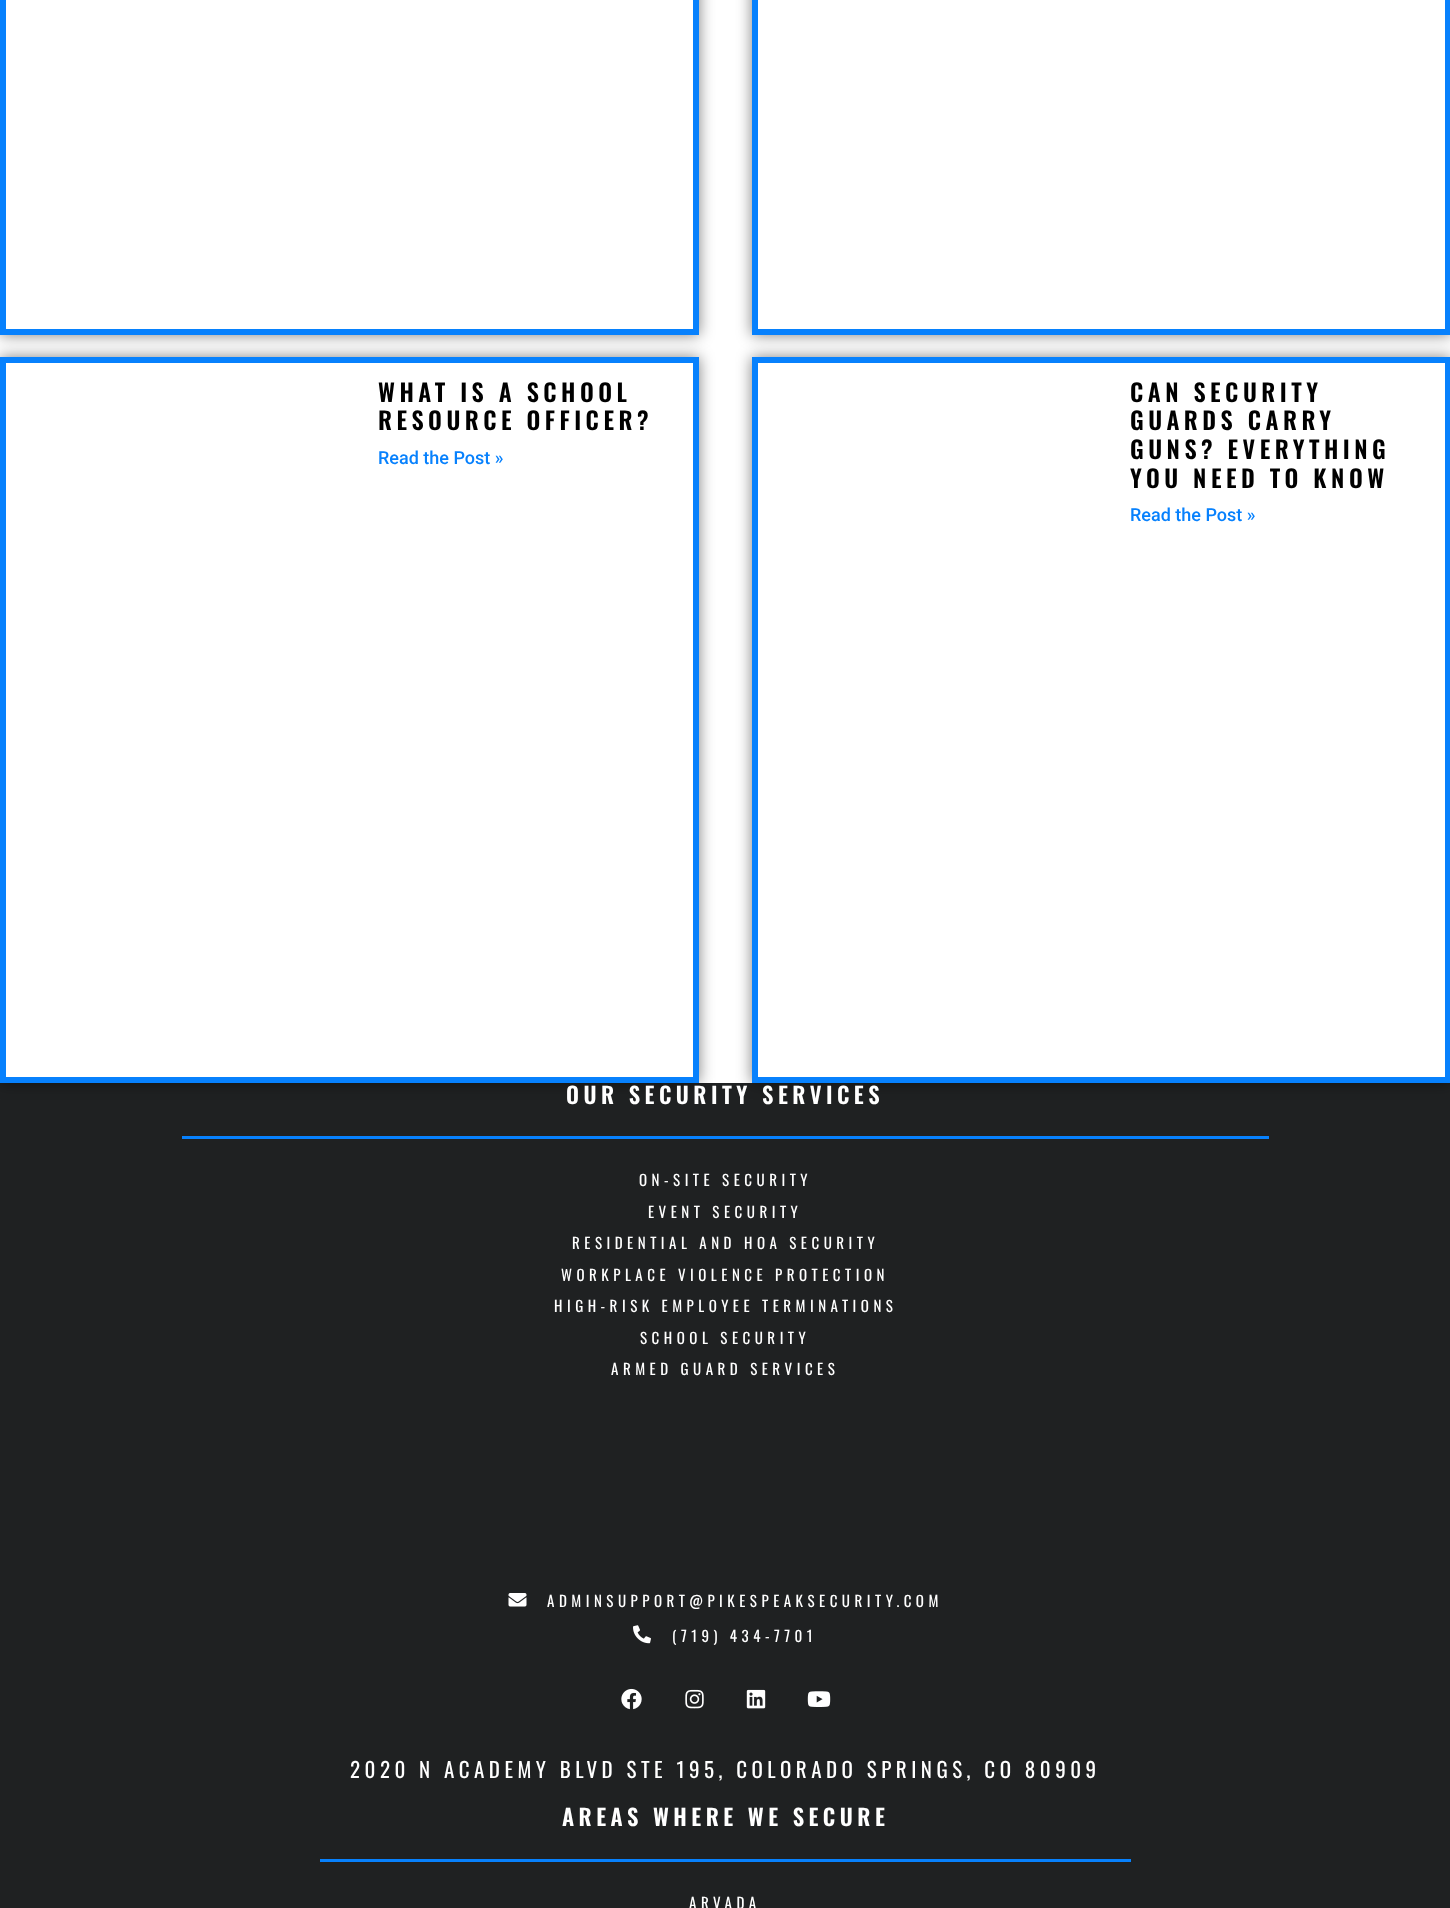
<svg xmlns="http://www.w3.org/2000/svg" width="1450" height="1908">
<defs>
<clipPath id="clip1"><path d="M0 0h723v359h-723zm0-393h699v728h-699z" clip-rule="evenodd"/></clipPath>
<clipPath id="clip2"><path d="M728 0h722v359h-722zm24-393h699v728h-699z" clip-rule="evenodd"/></clipPath>
<clipPath id="clip3"><path d="M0 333h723v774h-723zm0 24h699v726h-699z" clip-rule="evenodd"/></clipPath>
<clipPath id="clip4"><path d="M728 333h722v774h-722zm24 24h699v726h-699z" clip-rule="evenodd"/></clipPath>
</defs>
<rect width="100%" height="100%" fill="#fff"/>
<g clip-path="url(#clip1)">
<rect y="-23" width="699" height="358" fill="#00000080" filter="blur(7.5px)"/>
</g>
<rect x="3" y="-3" width="693" height="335" fill="none" stroke="#0781fd" stroke-width="6"/>
<g clip-path="url(#clip2)">
<rect x="752" y="-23" width="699" height="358" fill="#00000080" filter="blur(7.5px)"/>
</g>
<rect x="755" y="-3" width="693" height="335" fill="none" stroke="#0781fd" stroke-width="6"/>
<rect y="1083" width="1450" height="825" fill="#1f2122"/>
<g clip-path="url(#clip3)">
<rect y="357" width="699" height="726" fill="#00000080" filter="blur(7.5px)"/>
</g>
<rect x="3" y="360" width="693" height="720" fill="none" stroke="#0781fd" stroke-width="6"/>
<text x="378" y="402" style="font-family:Oswald;font-size:24px;font-weight:600;letter-spacing:4.5px;fill:#000">WHAT IS A SCHOOL</text>
<text x="378" y="430" style="font-family:Oswald;font-size:24px;font-weight:600;letter-spacing:4.5px;fill:#000">RESOURCE OFFICER?</text>
<text x="378" y="464" style="font-family:Roboto;font-size:18px;font-weight:500;fill:#0781fd">Read the Post »</text>
<g clip-path="url(#clip4)">
<rect x="752" y="357" width="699" height="726" fill="#00000080" filter="blur(7.5px)"/>
</g>
<rect x="755" y="360" width="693" height="720" fill="none" stroke="#0781fd" stroke-width="6"/>
<text x="1130" y="402" style="font-family:Oswald;font-size:24px;font-weight:600;letter-spacing:4.5px;fill:#000">CAN SECURITY</text>
<text x="1130" y="430" style="font-family:Oswald;font-size:24px;font-weight:600;letter-spacing:4.5px;fill:#000">GUARDS CARRY</text>
<text x="1130" y="459" style="font-family:Oswald;font-size:24px;font-weight:600;letter-spacing:4.5px;fill:#000">GUNS? EVERYTHING</text>
<text x="1130" y="488" style="font-family:Oswald;font-size:24px;font-weight:600;letter-spacing:4.5px;fill:#000">YOU NEED TO KNOW</text>
<text x="1130" y="521" style="font-family:Roboto;font-size:18px;font-weight:500;fill:#0781fd">Read the Post »</text>
<text x="566" y="1104" style="font-family:Oswald;font-size:22.5px;font-weight:600;letter-spacing:4.5px;fill:#fff">OUR SECURITY SERVICES</text>
<rect x="182" y="1136" width="1087" height="3" fill="#0781fd"/>
<text x="639" y="1186" style="font-family:Oswald;font-size:15px;letter-spacing:4.5px;fill:#fff">ON-SITE SECURITY</text>
<text x="648" y="1218" style="font-family:Oswald;font-size:15px;letter-spacing:4.5px;fill:#fff">EVENT SECURITY</text>
<text x="572" y="1249" style="font-family:Oswald;font-size:15px;letter-spacing:4.5px;fill:#fff">RESIDENTIAL AND HOA SECURITY</text>
<text x="561" y="1281" style="font-family:Oswald;font-size:15px;letter-spacing:4.5px;fill:#fff">WORKPLACE VIOLENCE PROTECTION</text>
<text x="554" y="1312" style="font-family:Oswald;font-size:15px;letter-spacing:4.5px;fill:#fff">HIGH-RISK EMPLOYEE TERMINATIONS</text>
<text x="640" y="1344" style="font-family:Oswald;font-size:15px;letter-spacing:4.5px;fill:#fff">SCHOOL SECURITY</text>
<text x="611" y="1375" style="font-family:Oswald;font-size:15px;letter-spacing:4.5px;fill:#fff">ARMED GUARD SERVICES</text>
<image x="508" y="1593" width="19" height="14" href="media/1.png"/>
<text x="547" y="1607" style="font-family:Oswald;font-size:15px;letter-spacing:4.5px;fill:#fff">ADMINSUPPORT@PIKESPEAKSECURITY.COM</text>
<image x="633" y="1625" width="18" height="19" href="media/2.png"/>
<text x="672" y="1642" style="font-family:Oswald;font-size:15px;letter-spacing:4.5px;fill:#fff">(719) 434-7701</text>
<image x="621" y="1688" width="21" height="22" href="media/3.png"/>
<image x="685" y="1689" width="19" height="20" href="media/4.png"/>
<image x="746" y="1689" width="20" height="20" href="media/5.png"/>
<image x="807" y="1691" width="24" height="16" href="media/6.png"/>
<text x="350" y="1778" style="font-family:Oswald;font-size:21px;letter-spacing:4.5px;fill:#fff">2020 N ACADEMY BLVD STE 195, COLORADO SPRINGS, CO 80909</text>
<text x="562" y="1826" style="font-family:Oswald;font-size:22.5px;font-weight:600;letter-spacing:4.5px;fill:#fff">AREAS WHERE WE SECURE</text>
<rect x="320" y="1859" width="811" height="3" fill="#0781fd"/>
<text x="689" y="1909" style="font-family:Oswald;font-size:15px;letter-spacing:4.5px;fill:#fff">ARVADA</text>
</svg>
